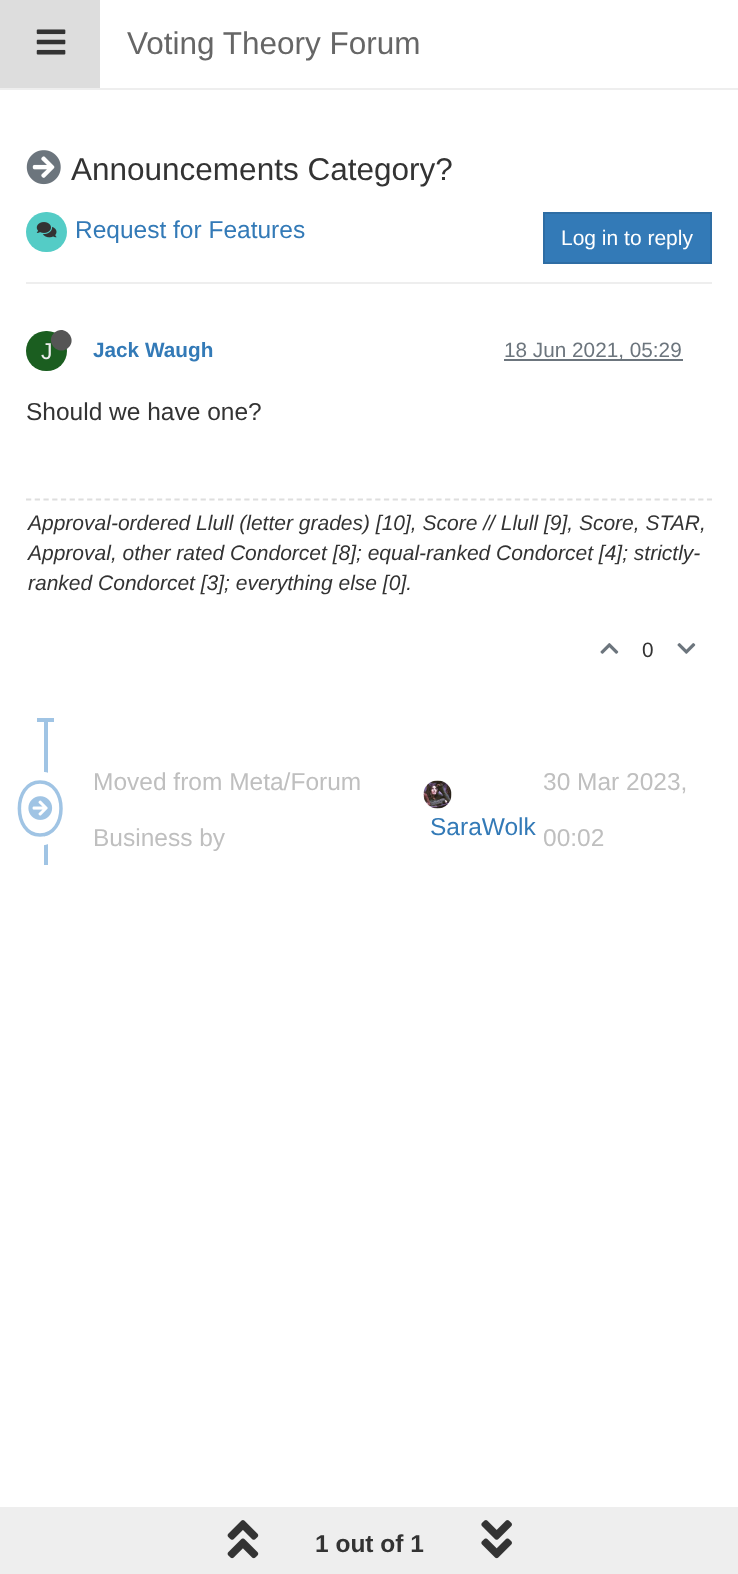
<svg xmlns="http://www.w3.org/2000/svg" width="738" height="1574">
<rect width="100%" height="100%" fill="#fff"/>
<rect y="88" width="738" height="2" fill="#eee"/>
<rect width="100" height="88" fill="#ddd"/>
<image x="36" y="29" width="30" height="26" href="media/1.png"/>
<text x="127" y="54" style="font-family:Liberation Sans;font-size:31.5px;fill:#666">Voting Theory Forum</text>
<image x="26" y="150" width="35" height="35" href="media/2.png"/>
<text x="71" y="180" style="font-family:Liberation Sans;font-size:31.5px;fill:#333">Announcements Category?</text>
<rect x="26" y="282" width="686" height="2" fill="#eee"/>
<rect x="26" y="212" width="41" height="40" rx="20" fill="#54ccc6"/>
<image x="36" y="222" width="21" height="16" href="media/3.png"/>
<text x="75" y="238" style="font-family:Liberation Sans;font-size:24.5px;fill:#337ab7">Request for Features</text>
<rect x="544" y="213" width="167" height="50" fill="#337ab7" stroke="#2e6da4" stroke-width="2"/>
<text x="561" y="245" style="font-family:Liberation Sans;font-size:21px;fill:#fff">Log in to reply</text>
<rect x="26" y="331" width="41" height="40" rx="20" fill="#1b5e20"/>
<text x="41" y="359" style="font-family:Liberation Sans;font-size:23px;fill:#eee">J</text>
<path d="M54 333c9.5-9.5 24 5 14.5 14.5c-9.5 9.5-24-5-14.5-14.5z" fill="#555"/>
<text x="93" y="357" style="font-family:Liberation Sans;font-size:20.75px;font-weight:bold;fill:#337ab7">Jack Waugh</text>
<rect x="504" y="359" width="179" height="2" fill="#6c757d"/>
<text x="504" y="357" style="font-family:Liberation Sans;font-size:20.75px;fill:#6c757d">18 Jun 2021, 05:29</text>
<text x="26" y="420" style="font-family:Liberation Sans;font-size:24.5px;fill:#333">Should we have one?</text>
<path d="M26 499.5h686" fill="none" stroke="#dedede" stroke-width="1.8" stroke-dasharray="5.25 3.48"/>
<text x="28" y="530" style="font-family:Liberation Sans;font-size:21px;font-style:italic;fill:#333">Approval-ordered Llull (letter grades) [10], Score // Llull [9], Score, STAR,</text>
<text x="28" y="560" style="font-family:Liberation Sans;font-size:21px;font-style:italic;fill:#333">Approval, other rated Condorcet [8]; equal-ranked Condorcet [4]; strictly-</text>
<text x="28" y="590" style="font-family:Liberation Sans;font-size:21px;font-style:italic;fill:#333">ranked Condorcet [3]; everything else [0].</text>
<image x="600" y="643" width="19" height="11" href="media/4.png"/>
<text x="642" y="657" style="font-family:Liberation Sans;font-size:20.75px;fill:#333">0</text>
<image x="677" y="643" width="19" height="11" href="media/5.png"/>
<rect x="44" y="718" width="4" height="147" fill="#a0c4e4"/>
<rect x="37" y="718" width="17" height="4" fill="#a0c4e4"/>
<path d="M40 776c15 0 27.5 14.5 27.5 32.5c0 18-12.5 32.5-27.5 32.5c-14.5 0-27-14.5-27-32.5c0-18 12.5-32.5 27-32.5z" fill="none" stroke="#fff" stroke-width="8.8"/>
<ellipse cx="40" cy="808.5" rx="23" ry="28" fill="#fff"/>
<path d="M40 782c28 0 28 53 0 53c-27.5 0-27.5-53 0-53z" fill="none" stroke="#a0c4e4" stroke-width="3.5"/>
<image x="28" y="796" width="25" height="24" href="media/6.png"/>
<text x="93" y="790" style="font-family:Liberation Sans;font-size:24.5px;fill:#bfbfbf">Moved from Meta/Forum</text>
<text x="93" y="846" style="font-family:Liberation Sans;font-size:24.5px;fill:#bfbfbf">Business by</text>
<image x="423" y="780" width="29" height="29" href="media/7.png"/>
<text x="430" y="835" style="font-family:Liberation Sans;font-size:24.5px;fill:#337ab7">SaraWolk</text>
<text x="543" y="790" style="font-family:Liberation Sans;font-size:24.5px;fill:#bfbfbf">30 Mar 2023,</text>
<text x="543" y="846" style="font-family:Liberation Sans;font-size:24.5px;fill:#bfbfbf">00:02</text>
<rect y="1507" width="738" height="67" fill="#eee"/>
<image x="227" y="1520" width="32" height="39" href="media/8.png"/>
<text x="315" y="1552" style="font-family:Liberation Sans;font-size:24.5px;font-weight:bold;fill:#333">1 out of 1</text>
<image x="481" y="1520" width="31" height="39" href="media/9.png"/>
</svg>
